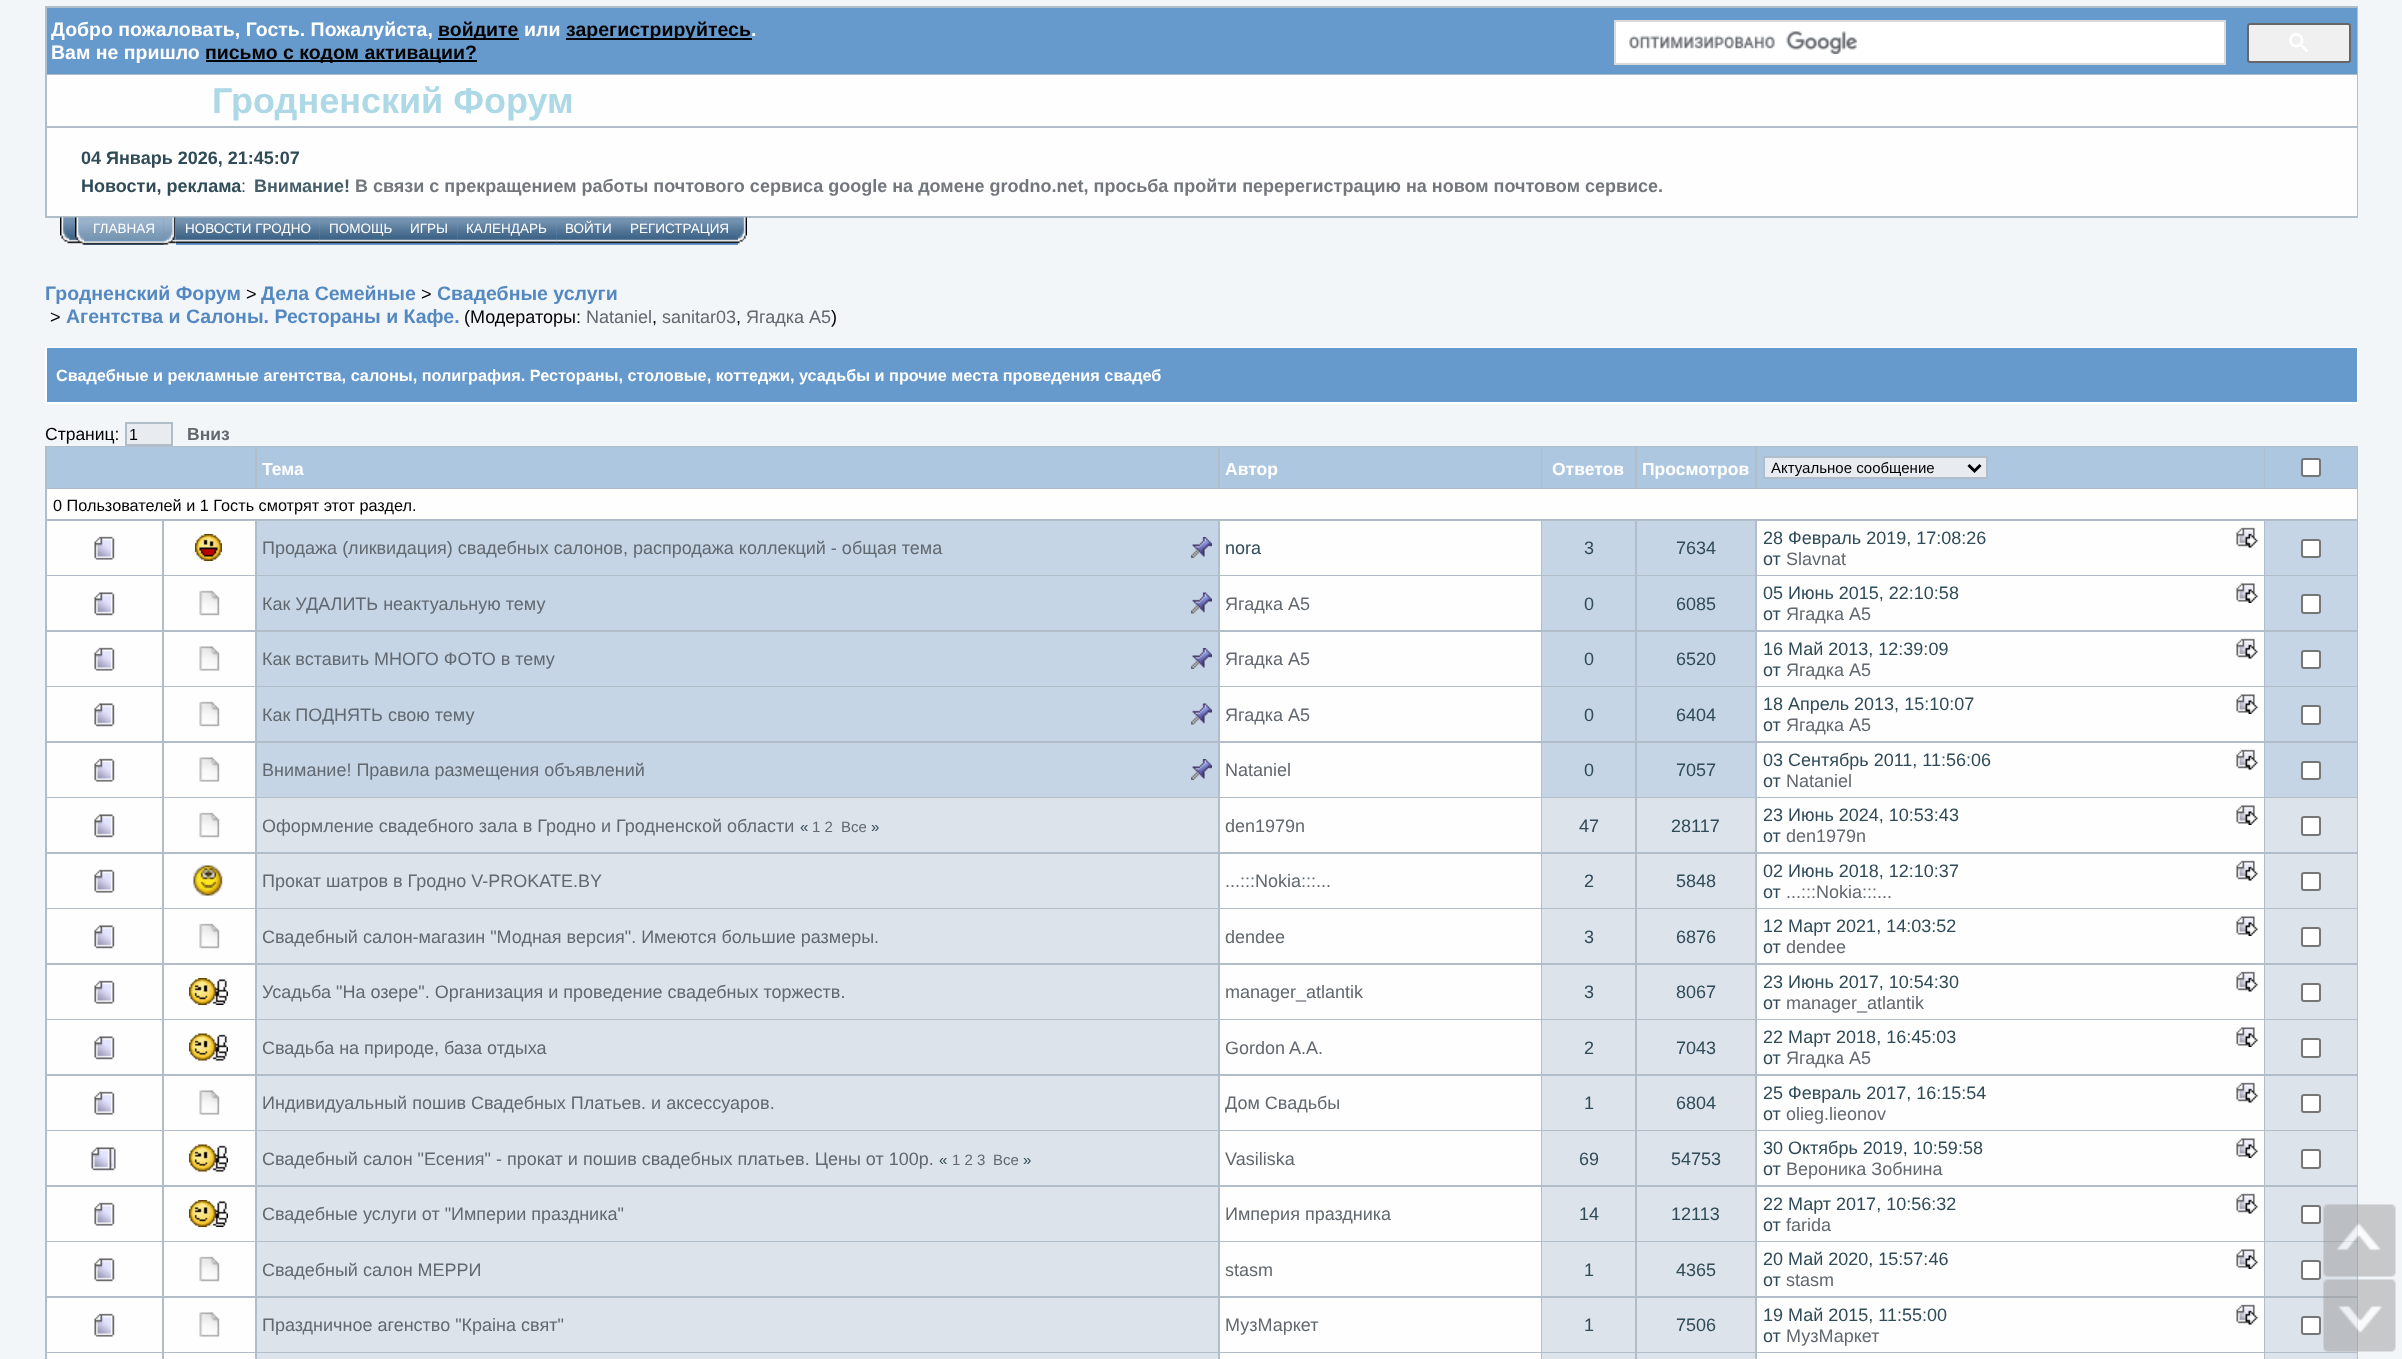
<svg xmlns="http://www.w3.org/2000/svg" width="2402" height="1359">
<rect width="100%" height="100%" fill="#f2f6f9"/>
<rect x="45" y="6" width="2313" height="212" fill="#b1bdc9"/>
<rect x="47" y="8" width="2310" height="66" fill="#69c"/>
<text x="51" y="36" style="font-family:Liberation Sans;font-size:19.5px;font-weight:bold;fill:#fff">Добро пожаловать, Гость. Пожалуйста,</text>
<rect x="438" y="38" width="81" height="2" fill="#000"/>
<text x="438" y="36" style="font-family:Liberation Sans;font-size:19.5px;font-weight:bold;fill:#000">войдите</text>
<text x="524" y="36" style="font-family:Liberation Sans;font-size:19.5px;font-weight:bold;fill:#fff">или</text>
<rect x="566" y="38" width="186" height="2" fill="#000"/>
<text x="566" y="36" style="font-family:Liberation Sans;font-size:19.5px;font-weight:bold;fill:#000">зарегистрируйтесь</text>
<text x="751" y="36" style="font-family:Liberation Sans;font-size:19.5px;font-weight:bold;fill:#fff">.</text>
<text x="51" y="59" style="font-family:Liberation Sans;font-size:19.5px;font-weight:bold;fill:#fff">Вам не пришло</text>
<rect x="206" y="60" width="271" height="2" fill="#000"/>
<text x="205" y="59" style="font-family:Liberation Sans;font-size:19.5px;font-weight:bold;fill:#000">письмо с кодом активации?</text>
<rect x="1615" y="21" width="610" height="43" fill="#fff" stroke="#d9d9d9" stroke-width="2"/>
<image x="1629" y="31" width="228" height="23" href="media/1.png"/>
<rect x="2248" y="24" width="102" height="38" rx="2" fill="#f0f0f0" stroke="#666" stroke-width="2"/>
<image x="2289" y="33" width="19" height="19" href="media/2.png"/>
<rect x="47" y="75" width="2310" height="51" fill="#fefefe"/>
<text x="212" y="113" style="font-family:Liberation Sans;font-size:36px;font-weight:bold;fill:#add8e6">Гродненский Форум</text>
<rect x="47" y="128" width="2310" height="88" fill="#fefefe"/>
<text x="81" y="164" style="font-family:Liberation Sans;font-size:18px;font-weight:bold;fill:#304b58">04 Январь 2026, 21:45:07</text>
<text x="81" y="192" style="font-family:Liberation Sans;font-size:18px;font-weight:bold;fill:#304b58">Новости, реклама</text>
<text x="241" y="192" style="font-family:Liberation Sans;font-size:18px;fill:#304b58">:</text>
<text x="254" y="192" style="font-family:Liberation Sans;font-size:18px;font-weight:bold;fill:#455d69">Внимание!</text>
<text x="355" y="192" style="font-family:Liberation Sans;font-size:18px;font-weight:bold;fill:#72777d">В связи с прекращением работы почтового сервиса google на домене grodno.net, просьба пройти перерегистрацию на новом почтовом сервисе.</text>
<image x="60" y="217" width="15" height="27" href="media/3.png"/>
<image x="75" y="217" width="9" height="28" href="media/4.png"/>
<rect x="84" y="218" width="80" height="27" fill="#69c"/>
<image x="84" y="217" width="80" height="28" href="media/5.png"/>
<text x="93" y="233" style="font-family:Liberation Sans;font-size:13.5px;fill:#fff">ГЛАВНАЯ</text>
<image x="163" y="217" width="13" height="28" href="media/6.png"/>
<rect x="176" y="218" width="144" height="27" fill="#69c"/>
<image x="175" y="217" width="145" height="27" href="media/7.png"/>
<text x="185" y="233" style="font-family:Liberation Sans;font-size:13.5px;fill:#fff">НОВОСТИ ГРОДНО</text>
<rect x="320" y="242" width="82" height="3" fill="#69c"/>
<image x="319" y="217" width="83" height="27" href="media/8.png"/>
<text x="329" y="233" style="font-family:Liberation Sans;font-size:13.5px;fill:#fff">ПОМОЩЬ</text>
<rect x="402" y="218" width="155" height="27" fill="#69c"/>
<image x="402" y="217" width="56" height="27" href="media/9.png"/>
<text x="410" y="233" style="font-family:Liberation Sans;font-size:13.5px;fill:#fff">ИГРЫ</text>
<image x="457" y="217" width="100" height="27" href="media/10.png"/>
<text x="466" y="233" style="font-family:Liberation Sans;font-size:13.5px;fill:#fff">КАЛЕНДАРЬ</text>
<rect x="557" y="242" width="181" height="3" fill="#69c"/>
<image x="556" y="217" width="65" height="27" href="media/11.png"/>
<text x="565" y="233" style="font-family:Liberation Sans;font-size:13.5px;fill:#fff">ВОЙТИ</text>
<image x="621" y="217" width="117" height="27" href="media/12.png"/>
<text x="630" y="233" style="font-family:Liberation Sans;font-size:13.5px;fill:#fff">РЕГИСТРАЦИЯ</text>
<image x="738" y="217" width="9" height="27" href="media/13.png"/>
<text x="45" y="300" style="font-family:Liberation Sans;font-size:19.5px;font-weight:bold;fill:#5488c1">Гродненский Форум</text>
<text x="246" y="300" style="font-family:Liberation Sans;font-size:18px;fill:#000">&gt;</text>
<text x="261" y="300" style="font-family:Liberation Sans;font-size:19.5px;font-weight:bold;fill:#5488c1">Дела Семейные</text>
<text x="421" y="300" style="font-family:Liberation Sans;font-size:18px;fill:#000">&gt;</text>
<text x="437" y="300" style="font-family:Liberation Sans;font-size:19.5px;font-weight:bold;fill:#5488c1">Свадебные услуги</text>
<text x="50" y="323" style="font-family:Liberation Sans;font-size:18px;fill:#000">&gt;</text>
<text x="66" y="323" style="font-family:Liberation Sans;font-size:19.5px;font-weight:bold;fill:#5488c1">Агентства и Салоны. Рестораны и Кафе.</text>
<text x="464" y="323" style="font-family:Liberation Sans;font-size:18px;fill:#000">(Модераторы:</text>
<text x="586" y="323" style="font-family:Liberation Sans;font-size:18px;fill:#62686f">Nataniel</text>
<text x="662" y="323" style="font-family:Liberation Sans;font-size:18px;fill:#62686f">sanitar03</text>
<text x="746" y="323" style="font-family:Liberation Sans;font-size:18px;fill:#62686f">Ягадка А5</text>
<text x="831" y="323" style="font-family:Liberation Sans;font-size:18px;fill:#000">)</text>
<text x="652" y="323" style="font-family:Liberation Sans;font-size:18px;fill:#000">,</text>
<text x="736" y="323" style="font-family:Liberation Sans;font-size:18px;fill:#000">,</text>
<rect x="45" y="347" width="2313" height="57" fill="#fff"/>
<rect x="47" y="348" width="2310" height="54" fill="#69c"/>
<text x="56" y="381" style="font-family:Liberation Sans;font-size:16.25px;font-weight:bold;fill:#fff">Cвадебные и рекламные агентства, салоны, полиграфия. Рестораны, столовые, коттеджи, усадьбы и прочие места проведения свадеб</text>
<text x="45" y="440" style="font-family:Liberation Sans;font-size:17.5px;fill:#000">Страниц:</text>
<rect x="126" y="423" width="46" height="22" fill="#e8ebef" stroke="#b1bdc9" stroke-width="2"/>
<text x="129" y="440" style="font-family:Liberation Sans;font-size:16px;fill:#000">1</text>
<text x="187" y="440" style="font-family:Liberation Sans;font-size:17.5px;font-weight:bold;fill:#62686f">Вниз</text>
<rect x="45" y="446" width="2313" height="913" fill="#b1bdc9"/>
<rect x="47" y="447" width="208" height="41" fill="#adc7e1"/>
<rect x="257" y="447" width="961" height="41" fill="#adc7e1"/>
<text x="262" y="475" style="font-family:Liberation Sans;font-size:17.5px;font-weight:bold;fill:#fff">Тема</text>
<rect x="1220" y="447" width="321" height="41" fill="#adc7e1"/>
<text x="1225" y="475" style="font-family:Liberation Sans;font-size:17.5px;font-weight:bold;fill:#fff">Автор</text>
<rect x="1542" y="447" width="93" height="41" fill="#adc7e1"/>
<text x="1552" y="475" style="font-family:Liberation Sans;font-size:17.5px;font-weight:bold;fill:#fff">Ответов</text>
<rect x="1637" y="447" width="118" height="41" fill="#adc7e1"/>
<text x="1642" y="475" style="font-family:Liberation Sans;font-size:17.5px;font-weight:bold;fill:#fff">Просмотров</text>
<rect x="1757" y="447" width="507" height="41" fill="#adc7e1"/>
<rect x="1764" y="457" width="223" height="21" fill="#e8ebef" stroke="#b1bdc9" stroke-width="2"/>
<path d="M1968.5 465l6 6l6-6" fill="none" stroke="#000" stroke-width="3"/>
<text x="1771" y="473" style="font-family:Liberation Sans;font-size:15px;fill:#000">Актуальное сообщение</text>
<rect x="2265" y="447" width="92" height="41" fill="#adc7e1"/>
<rect x="2302" y="459" width="18" height="17" rx="2" fill="#fff" stroke="#767676" stroke-width="2"/>
<rect x="47" y="489" width="2310" height="30" fill="#fefefe"/>
<text x="53" y="511" style="font-family:Liberation Sans;font-size:16.25px;fill:#000">0 Пользователей и 1 Гость смотрят этот раздел.</text>
<rect x="47" y="521" width="115" height="54" fill="#fefefe"/>
<image x="94" y="536" width="21" height="24" href="media/14.png"/>
<rect x="164" y="521" width="91" height="54" fill="#fefefe"/>
<image x="195" y="534" width="27" height="27" href="media/15.png"/>
<rect x="257" y="521" width="961" height="54" fill="#c5d5e6"/>
<text x="262" y="554" style="font-family:Liberation Sans;font-size:18px;fill:#62686f">Продажа (ликвидация) свадебных салонов, распродажа коллекций - общая тема</text>
<image x="1191" y="537" width="21" height="21" href="media/16.png"/>
<rect x="1220" y="521" width="321" height="54" fill="#fefefe"/>
<text x="1225" y="554" style="font-family:Liberation Sans;font-size:18px;fill:#304b58">nora</text>
<rect x="1542" y="521" width="93" height="54" fill="#c5d5e6"/>
<text x="1584" y="554" style="font-family:Liberation Sans;font-size:18px;fill:#304b58">3</text>
<rect x="1637" y="521" width="118" height="54" fill="#c5d5e6"/>
<text x="1676" y="554" style="font-family:Liberation Sans;font-size:18px;fill:#304b58">7634</text>
<rect x="1757" y="521" width="507" height="54" fill="#fefefe"/>
<text x="1763" y="544" style="font-family:Liberation Sans;font-size:18px;fill:#304b58">28 Февраль 2019, 17:08:26</text>
<image x="2236" y="527" width="22" height="21" href="media/17.png"/>
<text x="1763" y="565" style="font-family:Liberation Sans;font-size:18px;fill:#304b58">от</text>
<text x="1786" y="565" style="font-family:Liberation Sans;font-size:18px;fill:#62686f">Slavnat</text>
<rect x="2265" y="521" width="92" height="54" fill="#c5d5e6"/>
<rect x="2302" y="540" width="18" height="17" rx="2" fill="#fff" stroke="#767676" stroke-width="2"/>
<rect x="47" y="576" width="115" height="54" fill="#fefefe"/>
<image x="94" y="592" width="21" height="24" href="media/18.png"/>
<rect x="164" y="576" width="91" height="54" fill="#fefefe"/>
<image x="199" y="590" width="21" height="26" href="media/19.png"/>
<rect x="257" y="576" width="961" height="54" fill="#c5d5e6"/>
<text x="262" y="610" style="font-family:Liberation Sans;font-size:18px;fill:#62686f">Как УДАЛИТЬ неактуальную тему</text>
<image x="1191" y="592" width="21" height="22" href="media/20.png"/>
<rect x="1220" y="576" width="321" height="54" fill="#fefefe"/>
<text x="1225" y="610" style="font-family:Liberation Sans;font-size:18px;fill:#62686f">Ягадка А5</text>
<rect x="1542" y="576" width="93" height="54" fill="#c5d5e6"/>
<text x="1584" y="610" style="font-family:Liberation Sans;font-size:18px;fill:#304b58">0</text>
<rect x="1637" y="576" width="118" height="54" fill="#c5d5e6"/>
<text x="1676" y="610" style="font-family:Liberation Sans;font-size:18px;fill:#304b58">6085</text>
<rect x="1757" y="576" width="507" height="54" fill="#fefefe"/>
<text x="1763" y="599" style="font-family:Liberation Sans;font-size:18px;fill:#304b58">05 Июнь 2015, 22:10:58</text>
<image x="2236" y="583" width="22" height="20" href="media/21.png"/>
<text x="1763" y="620" style="font-family:Liberation Sans;font-size:18px;fill:#304b58">от</text>
<text x="1786" y="620" style="font-family:Liberation Sans;font-size:18px;fill:#62686f">Ягадка А5</text>
<rect x="2265" y="576" width="92" height="54" fill="#c5d5e6"/>
<rect x="2302" y="595" width="18" height="18" rx="2" fill="#fff" stroke="#767676" stroke-width="2"/>
<rect x="47" y="632" width="115" height="54" fill="#fefefe"/>
<image x="94" y="647" width="21" height="24" href="media/14.png"/>
<rect x="164" y="632" width="91" height="54" fill="#fefefe"/>
<image x="199" y="646" width="21" height="25" href="media/22.png"/>
<rect x="257" y="632" width="961" height="54" fill="#c5d5e6"/>
<text x="262" y="665" style="font-family:Liberation Sans;font-size:18px;fill:#62686f">Как вставить МНОГО ФОТО в тему</text>
<image x="1191" y="648" width="21" height="21" href="media/16.png"/>
<rect x="1220" y="632" width="321" height="54" fill="#fefefe"/>
<text x="1225" y="665" style="font-family:Liberation Sans;font-size:18px;fill:#62686f">Ягадка А5</text>
<rect x="1542" y="632" width="93" height="54" fill="#c5d5e6"/>
<text x="1584" y="665" style="font-family:Liberation Sans;font-size:18px;fill:#304b58">0</text>
<rect x="1637" y="632" width="118" height="54" fill="#c5d5e6"/>
<text x="1676" y="665" style="font-family:Liberation Sans;font-size:18px;fill:#304b58">6520</text>
<rect x="1757" y="632" width="507" height="54" fill="#fefefe"/>
<text x="1763" y="655" style="font-family:Liberation Sans;font-size:18px;fill:#304b58">16 Май 2013, 12:39:09</text>
<image x="2236" y="638" width="22" height="21" href="media/17.png"/>
<text x="1763" y="676" style="font-family:Liberation Sans;font-size:18px;fill:#304b58">от</text>
<text x="1786" y="676" style="font-family:Liberation Sans;font-size:18px;fill:#62686f">Ягадка А5</text>
<rect x="2265" y="632" width="92" height="54" fill="#c5d5e6"/>
<rect x="2302" y="651" width="18" height="17" rx="2" fill="#fff" stroke="#767676" stroke-width="2"/>
<rect x="47" y="687" width="115" height="54" fill="#fefefe"/>
<image x="94" y="703" width="21" height="24" href="media/18.png"/>
<rect x="164" y="687" width="91" height="54" fill="#fefefe"/>
<image x="199" y="701" width="21" height="26" href="media/19.png"/>
<rect x="257" y="687" width="961" height="54" fill="#c5d5e6"/>
<text x="262" y="721" style="font-family:Liberation Sans;font-size:18px;fill:#62686f">Как ПОДНЯТЬ свою тему</text>
<image x="1191" y="703" width="21" height="22" href="media/20.png"/>
<rect x="1220" y="687" width="321" height="54" fill="#fefefe"/>
<text x="1225" y="721" style="font-family:Liberation Sans;font-size:18px;fill:#62686f">Ягадка А5</text>
<rect x="1542" y="687" width="93" height="54" fill="#c5d5e6"/>
<text x="1584" y="721" style="font-family:Liberation Sans;font-size:18px;fill:#304b58">0</text>
<rect x="1637" y="687" width="118" height="54" fill="#c5d5e6"/>
<text x="1676" y="721" style="font-family:Liberation Sans;font-size:18px;fill:#304b58">6404</text>
<rect x="1757" y="687" width="507" height="54" fill="#fefefe"/>
<text x="1763" y="710" style="font-family:Liberation Sans;font-size:18px;fill:#304b58">18 Апрель 2013, 15:10:07</text>
<image x="2236" y="694" width="22" height="20" href="media/21.png"/>
<text x="1763" y="731" style="font-family:Liberation Sans;font-size:18px;fill:#304b58">от</text>
<text x="1786" y="731" style="font-family:Liberation Sans;font-size:18px;fill:#62686f">Ягадка А5</text>
<rect x="2265" y="687" width="92" height="54" fill="#c5d5e6"/>
<rect x="2302" y="706" width="18" height="18" rx="2" fill="#fff" stroke="#767676" stroke-width="2"/>
<rect x="47" y="743" width="115" height="54" fill="#fefefe"/>
<image x="94" y="758" width="21" height="24" href="media/14.png"/>
<rect x="164" y="743" width="91" height="54" fill="#fefefe"/>
<image x="199" y="757" width="21" height="25" href="media/22.png"/>
<rect x="257" y="743" width="961" height="54" fill="#c5d5e6"/>
<text x="262" y="776" style="font-family:Liberation Sans;font-size:18px;fill:#62686f">Внимание! Правила размещения объявлений</text>
<image x="1191" y="759" width="21" height="21" href="media/16.png"/>
<rect x="1220" y="743" width="321" height="54" fill="#fefefe"/>
<text x="1225" y="776" style="font-family:Liberation Sans;font-size:18px;fill:#62686f">Nataniel</text>
<rect x="1542" y="743" width="93" height="54" fill="#c5d5e6"/>
<text x="1584" y="776" style="font-family:Liberation Sans;font-size:18px;fill:#304b58">0</text>
<rect x="1637" y="743" width="118" height="54" fill="#c5d5e6"/>
<text x="1676" y="776" style="font-family:Liberation Sans;font-size:18px;fill:#304b58">7057</text>
<rect x="1757" y="743" width="507" height="54" fill="#fefefe"/>
<text x="1763" y="766" style="font-family:Liberation Sans;font-size:18px;fill:#304b58">03 Сентябрь 2011, 11:56:06</text>
<image x="2236" y="749" width="22" height="21" href="media/17.png"/>
<text x="1763" y="787" style="font-family:Liberation Sans;font-size:18px;fill:#304b58">от</text>
<text x="1786" y="787" style="font-family:Liberation Sans;font-size:18px;fill:#62686f">Nataniel</text>
<rect x="2265" y="743" width="92" height="54" fill="#c5d5e6"/>
<rect x="2302" y="762" width="18" height="17" rx="2" fill="#fff" stroke="#767676" stroke-width="2"/>
<rect x="47" y="798" width="115" height="54" fill="#fefefe"/>
<image x="94" y="814" width="21" height="24" href="media/18.png"/>
<rect x="164" y="798" width="91" height="54" fill="#fefefe"/>
<image x="199" y="812" width="21" height="26" href="media/19.png"/>
<rect x="257" y="798" width="961" height="54" fill="#dde3eb"/>
<text x="262" y="832" style="font-family:Liberation Sans;font-size:18px;fill:#62686f">Оформление свадебного зала в Гродно и Гродненской области</text>
<text x="800" y="832" style="font-family:Liberation Sans;font-size:15px;fill:#304b58">«</text>
<text x="812" y="832" style="font-family:Liberation Sans;font-size:15px;fill:#62686f">1 2</text>
<text x="841" y="832" style="font-family:Liberation Sans;font-size:15px;fill:#62686f">Все</text>
<text x="871" y="832" style="font-family:Liberation Sans;font-size:15px;fill:#304b58">»</text>
<rect x="1220" y="798" width="321" height="54" fill="#fefefe"/>
<text x="1225" y="832" style="font-family:Liberation Sans;font-size:18px;fill:#62686f">den1979n</text>
<rect x="1542" y="798" width="93" height="54" fill="#dde3eb"/>
<text x="1579" y="832" style="font-family:Liberation Sans;font-size:18px;fill:#304b58">47</text>
<rect x="1637" y="798" width="118" height="54" fill="#dde3eb"/>
<text x="1671" y="832" style="font-family:Liberation Sans;font-size:18px;fill:#304b58">28117</text>
<rect x="1757" y="798" width="507" height="54" fill="#fefefe"/>
<text x="1763" y="821" style="font-family:Liberation Sans;font-size:18px;fill:#304b58">23 Июнь 2024, 10:53:43</text>
<image x="2236" y="805" width="22" height="20" href="media/21.png"/>
<text x="1763" y="842" style="font-family:Liberation Sans;font-size:18px;fill:#304b58">от</text>
<text x="1786" y="842" style="font-family:Liberation Sans;font-size:18px;fill:#62686f">den1979n</text>
<rect x="2265" y="798" width="92" height="54" fill="#dde3eb"/>
<rect x="2302" y="817" width="18" height="18" rx="2" fill="#fff" stroke="#767676" stroke-width="2"/>
<rect x="47" y="854" width="115" height="54" fill="#fefefe"/>
<image x="94" y="869" width="21" height="24" href="media/14.png"/>
<rect x="164" y="854" width="91" height="54" fill="#fefefe"/>
<image x="193" y="865" width="30" height="31" href="media/23.png"/>
<rect x="257" y="854" width="961" height="54" fill="#dde3eb"/>
<text x="262" y="887" style="font-family:Liberation Sans;font-size:18px;fill:#62686f">Прокат шатров в Гродно V-PROKATE.BY</text>
<rect x="1220" y="854" width="321" height="54" fill="#fefefe"/>
<text x="1225" y="887" style="font-family:Liberation Sans;font-size:18px;fill:#62686f">...:::Nokia:::...</text>
<rect x="1542" y="854" width="93" height="54" fill="#dde3eb"/>
<text x="1584" y="887" style="font-family:Liberation Sans;font-size:18px;fill:#304b58">2</text>
<rect x="1637" y="854" width="118" height="54" fill="#dde3eb"/>
<text x="1676" y="887" style="font-family:Liberation Sans;font-size:18px;fill:#304b58">5848</text>
<rect x="1757" y="854" width="507" height="54" fill="#fefefe"/>
<text x="1763" y="877" style="font-family:Liberation Sans;font-size:18px;fill:#304b58">02 Июнь 2018, 12:10:37</text>
<image x="2236" y="860" width="22" height="21" href="media/17.png"/>
<text x="1763" y="898" style="font-family:Liberation Sans;font-size:18px;fill:#304b58">от</text>
<text x="1786" y="898" style="font-family:Liberation Sans;font-size:18px;fill:#62686f">...:::Nokia:::...</text>
<rect x="2265" y="854" width="92" height="54" fill="#dde3eb"/>
<rect x="2302" y="873" width="18" height="17" rx="2" fill="#fff" stroke="#767676" stroke-width="2"/>
<rect x="47" y="909" width="115" height="54" fill="#fefefe"/>
<image x="94" y="925" width="21" height="24" href="media/18.png"/>
<rect x="164" y="909" width="91" height="54" fill="#fefefe"/>
<image x="199" y="923" width="21" height="26" href="media/19.png"/>
<rect x="257" y="909" width="961" height="54" fill="#dde3eb"/>
<text x="262" y="943" style="font-family:Liberation Sans;font-size:18px;fill:#62686f">Свадебный салон-магазин "Модная версия". Имеются большие размеры.</text>
<rect x="1220" y="909" width="321" height="54" fill="#fefefe"/>
<text x="1225" y="943" style="font-family:Liberation Sans;font-size:18px;fill:#62686f">dendee</text>
<rect x="1542" y="909" width="93" height="54" fill="#dde3eb"/>
<text x="1584" y="943" style="font-family:Liberation Sans;font-size:18px;fill:#304b58">3</text>
<rect x="1637" y="909" width="118" height="54" fill="#dde3eb"/>
<text x="1676" y="943" style="font-family:Liberation Sans;font-size:18px;fill:#304b58">6876</text>
<rect x="1757" y="909" width="507" height="54" fill="#fefefe"/>
<text x="1763" y="932" style="font-family:Liberation Sans;font-size:18px;fill:#304b58">12 Март 2021, 14:03:52</text>
<image x="2236" y="916" width="22" height="20" href="media/21.png"/>
<text x="1763" y="953" style="font-family:Liberation Sans;font-size:18px;fill:#304b58">от</text>
<text x="1786" y="953" style="font-family:Liberation Sans;font-size:18px;fill:#62686f">dendee</text>
<rect x="2265" y="909" width="92" height="54" fill="#dde3eb"/>
<rect x="2302" y="928" width="18" height="18" rx="2" fill="#fff" stroke="#767676" stroke-width="2"/>
<rect x="47" y="965" width="115" height="54" fill="#fefefe"/>
<image x="94" y="980" width="21" height="24" href="media/14.png"/>
<rect x="164" y="965" width="91" height="54" fill="#fefefe"/>
<image x="189" y="978" width="39" height="27" href="media/24.png"/>
<rect x="257" y="965" width="961" height="54" fill="#dde3eb"/>
<text x="262" y="998" style="font-family:Liberation Sans;font-size:18px;fill:#62686f">Усадьба "На озере". Организация и проведение свадебных торжеств.</text>
<rect x="1220" y="965" width="321" height="54" fill="#fefefe"/>
<text x="1225" y="998" style="font-family:Liberation Sans;font-size:18px;fill:#62686f">manager_atlantik</text>
<rect x="1542" y="965" width="93" height="54" fill="#dde3eb"/>
<text x="1584" y="998" style="font-family:Liberation Sans;font-size:18px;fill:#304b58">3</text>
<rect x="1637" y="965" width="118" height="54" fill="#dde3eb"/>
<text x="1676" y="998" style="font-family:Liberation Sans;font-size:18px;fill:#304b58">8067</text>
<rect x="1757" y="965" width="507" height="54" fill="#fefefe"/>
<text x="1763" y="988" style="font-family:Liberation Sans;font-size:18px;fill:#304b58">23 Июнь 2017, 10:54:30</text>
<image x="2236" y="971" width="22" height="21" href="media/17.png"/>
<text x="1763" y="1009" style="font-family:Liberation Sans;font-size:18px;fill:#304b58">от</text>
<text x="1786" y="1009" style="font-family:Liberation Sans;font-size:18px;fill:#62686f">manager_atlantik</text>
<rect x="2265" y="965" width="92" height="54" fill="#dde3eb"/>
<rect x="2302" y="984" width="18" height="17" rx="2" fill="#fff" stroke="#767676" stroke-width="2"/>
<rect x="47" y="1020" width="115" height="54" fill="#fefefe"/>
<image x="94" y="1036" width="21" height="24" href="media/18.png"/>
<rect x="164" y="1020" width="91" height="54" fill="#fefefe"/>
<image x="189" y="1033" width="39" height="28" href="media/25.png"/>
<rect x="257" y="1020" width="961" height="54" fill="#dde3eb"/>
<text x="262" y="1054" style="font-family:Liberation Sans;font-size:18px;fill:#62686f">Свадьба на природе, база отдыха</text>
<rect x="1220" y="1020" width="321" height="54" fill="#fefefe"/>
<text x="1225" y="1054" style="font-family:Liberation Sans;font-size:18px;fill:#62686f">Gordon A.A.</text>
<rect x="1542" y="1020" width="93" height="54" fill="#dde3eb"/>
<text x="1584" y="1054" style="font-family:Liberation Sans;font-size:18px;fill:#304b58">2</text>
<rect x="1637" y="1020" width="118" height="54" fill="#dde3eb"/>
<text x="1676" y="1054" style="font-family:Liberation Sans;font-size:18px;fill:#304b58">7043</text>
<rect x="1757" y="1020" width="507" height="54" fill="#fefefe"/>
<text x="1763" y="1043" style="font-family:Liberation Sans;font-size:18px;fill:#304b58">22 Март 2018, 16:45:03</text>
<image x="2236" y="1027" width="22" height="20" href="media/21.png"/>
<text x="1763" y="1064" style="font-family:Liberation Sans;font-size:18px;fill:#304b58">от</text>
<text x="1786" y="1064" style="font-family:Liberation Sans;font-size:18px;fill:#62686f">Ягадка А5</text>
<rect x="2265" y="1020" width="92" height="54" fill="#dde3eb"/>
<rect x="2302" y="1039" width="18" height="18" rx="2" fill="#fff" stroke="#767676" stroke-width="2"/>
<rect x="47" y="1076" width="115" height="54" fill="#fefefe"/>
<image x="94" y="1091" width="21" height="24" href="media/14.png"/>
<rect x="164" y="1076" width="91" height="54" fill="#fefefe"/>
<image x="199" y="1090" width="21" height="25" href="media/22.png"/>
<rect x="257" y="1076" width="961" height="54" fill="#dde3eb"/>
<text x="262" y="1109" style="font-family:Liberation Sans;font-size:18px;fill:#62686f">Индивидуальный пошив Свадебных Платьев. и аксессуаров.</text>
<rect x="1220" y="1076" width="321" height="54" fill="#fefefe"/>
<text x="1225" y="1109" style="font-family:Liberation Sans;font-size:18px;fill:#62686f">Дом Свадьбы</text>
<rect x="1542" y="1076" width="93" height="54" fill="#dde3eb"/>
<text x="1584" y="1109" style="font-family:Liberation Sans;font-size:18px;fill:#304b58">1</text>
<rect x="1637" y="1076" width="118" height="54" fill="#dde3eb"/>
<text x="1676" y="1109" style="font-family:Liberation Sans;font-size:18px;fill:#304b58">6804</text>
<rect x="1757" y="1076" width="507" height="54" fill="#fefefe"/>
<text x="1763" y="1099" style="font-family:Liberation Sans;font-size:18px;fill:#304b58">25 Февраль 2017, 16:15:54</text>
<image x="2236" y="1082" width="22" height="21" href="media/17.png"/>
<text x="1763" y="1120" style="font-family:Liberation Sans;font-size:18px;fill:#304b58">от</text>
<text x="1786" y="1120" style="font-family:Liberation Sans;font-size:18px;fill:#62686f">olieg.lieonov</text>
<rect x="2265" y="1076" width="92" height="54" fill="#dde3eb"/>
<rect x="2302" y="1095" width="18" height="17" rx="2" fill="#fff" stroke="#767676" stroke-width="2"/>
<rect x="47" y="1131" width="115" height="54" fill="#fefefe"/>
<image x="91" y="1147" width="25" height="24" href="media/26.png"/>
<rect x="164" y="1131" width="91" height="54" fill="#fefefe"/>
<image x="189" y="1144" width="39" height="28" href="media/25.png"/>
<rect x="257" y="1131" width="961" height="54" fill="#dde3eb"/>
<text x="262" y="1165" style="font-family:Liberation Sans;font-size:18px;fill:#62686f">Свадебный салон "Есения" - прокат и пошив свадебных платьев. Цены от 100р.</text>
<text x="939" y="1165" style="font-family:Liberation Sans;font-size:15px;fill:#304b58">«</text>
<text x="952" y="1165" style="font-family:Liberation Sans;font-size:15px;fill:#62686f">1 2 3</text>
<text x="993" y="1165" style="font-family:Liberation Sans;font-size:15px;fill:#62686f">Все</text>
<text x="1023" y="1165" style="font-family:Liberation Sans;font-size:15px;fill:#304b58">»</text>
<rect x="1220" y="1131" width="321" height="54" fill="#fefefe"/>
<text x="1225" y="1165" style="font-family:Liberation Sans;font-size:18px;fill:#62686f">Vasiliska</text>
<rect x="1542" y="1131" width="93" height="54" fill="#dde3eb"/>
<text x="1579" y="1165" style="font-family:Liberation Sans;font-size:18px;fill:#304b58">69</text>
<rect x="1637" y="1131" width="118" height="54" fill="#dde3eb"/>
<text x="1671" y="1165" style="font-family:Liberation Sans;font-size:18px;fill:#304b58">54753</text>
<rect x="1757" y="1131" width="507" height="54" fill="#fefefe"/>
<text x="1763" y="1154" style="font-family:Liberation Sans;font-size:18px;fill:#304b58">30 Октябрь 2019, 10:59:58</text>
<image x="2236" y="1138" width="22" height="20" href="media/21.png"/>
<text x="1763" y="1175" style="font-family:Liberation Sans;font-size:18px;fill:#304b58">от</text>
<text x="1786" y="1175" style="font-family:Liberation Sans;font-size:18px;fill:#62686f">Вероника Зобнина</text>
<rect x="2265" y="1131" width="92" height="54" fill="#dde3eb"/>
<rect x="2302" y="1150" width="18" height="18" rx="2" fill="#fff" stroke="#767676" stroke-width="2"/>
<rect x="47" y="1187" width="115" height="54" fill="#fefefe"/>
<image x="94" y="1202" width="21" height="24" href="media/14.png"/>
<rect x="164" y="1187" width="91" height="54" fill="#fefefe"/>
<image x="189" y="1200" width="39" height="27" href="media/24.png"/>
<rect x="257" y="1187" width="961" height="54" fill="#dde3eb"/>
<text x="262" y="1220" style="font-family:Liberation Sans;font-size:18px;fill:#62686f">Свадебные услуги от "Империи праздника"</text>
<rect x="1220" y="1187" width="321" height="54" fill="#fefefe"/>
<text x="1225" y="1220" style="font-family:Liberation Sans;font-size:18px;fill:#62686f">Империя праздника</text>
<rect x="1542" y="1187" width="93" height="54" fill="#dde3eb"/>
<text x="1579" y="1220" style="font-family:Liberation Sans;font-size:18px;fill:#304b58">14</text>
<rect x="1637" y="1187" width="118" height="54" fill="#dde3eb"/>
<text x="1671" y="1220" style="font-family:Liberation Sans;font-size:18px;fill:#304b58">12113</text>
<rect x="1757" y="1187" width="507" height="54" fill="#fefefe"/>
<text x="1763" y="1210" style="font-family:Liberation Sans;font-size:18px;fill:#304b58">22 Март 2017, 10:56:32</text>
<image x="2236" y="1193" width="22" height="21" href="media/17.png"/>
<text x="1763" y="1231" style="font-family:Liberation Sans;font-size:18px;fill:#304b58">от</text>
<text x="1786" y="1231" style="font-family:Liberation Sans;font-size:18px;fill:#62686f">farida</text>
<rect x="2265" y="1187" width="92" height="54" fill="#dde3eb"/>
<rect x="2302" y="1206" width="18" height="17" rx="2" fill="#fff" stroke="#767676" stroke-width="2"/>
<rect x="47" y="1242" width="115" height="54" fill="#fefefe"/>
<image x="94" y="1258" width="21" height="24" href="media/18.png"/>
<rect x="164" y="1242" width="91" height="54" fill="#fefefe"/>
<image x="199" y="1256" width="21" height="26" href="media/19.png"/>
<rect x="257" y="1242" width="961" height="54" fill="#dde3eb"/>
<text x="262" y="1276" style="font-family:Liberation Sans;font-size:18px;fill:#62686f">Свадебный салон МЕРРИ</text>
<rect x="1220" y="1242" width="321" height="54" fill="#fefefe"/>
<text x="1225" y="1276" style="font-family:Liberation Sans;font-size:18px;fill:#62686f">stasm</text>
<rect x="1542" y="1242" width="93" height="54" fill="#dde3eb"/>
<text x="1584" y="1276" style="font-family:Liberation Sans;font-size:18px;fill:#304b58">1</text>
<rect x="1637" y="1242" width="118" height="54" fill="#dde3eb"/>
<text x="1676" y="1276" style="font-family:Liberation Sans;font-size:18px;fill:#304b58">4365</text>
<rect x="1757" y="1242" width="507" height="54" fill="#fefefe"/>
<text x="1763" y="1265" style="font-family:Liberation Sans;font-size:18px;fill:#304b58">20 Май 2020, 15:57:46</text>
<image x="2236" y="1249" width="22" height="20" href="media/21.png"/>
<text x="1763" y="1286" style="font-family:Liberation Sans;font-size:18px;fill:#304b58">от</text>
<text x="1786" y="1286" style="font-family:Liberation Sans;font-size:18px;fill:#62686f">stasm</text>
<rect x="2265" y="1242" width="92" height="54" fill="#dde3eb"/>
<rect x="2302" y="1261" width="18" height="18" rx="2" fill="#fff" stroke="#767676" stroke-width="2"/>
<rect x="47" y="1298" width="115" height="54" fill="#fefefe"/>
<image x="94" y="1313" width="21" height="24" href="media/14.png"/>
<rect x="164" y="1298" width="91" height="54" fill="#fefefe"/>
<image x="199" y="1312" width="21" height="25" href="media/22.png"/>
<rect x="257" y="1298" width="961" height="54" fill="#dde3eb"/>
<text x="262" y="1331" style="font-family:Liberation Sans;font-size:18px;fill:#62686f">Праздничное агенство "Краiна свят"</text>
<rect x="1220" y="1298" width="321" height="54" fill="#fefefe"/>
<text x="1225" y="1331" style="font-family:Liberation Sans;font-size:18px;fill:#62686f">МузМаркет</text>
<rect x="1542" y="1298" width="93" height="54" fill="#dde3eb"/>
<text x="1584" y="1331" style="font-family:Liberation Sans;font-size:18px;fill:#304b58">1</text>
<rect x="1637" y="1298" width="118" height="54" fill="#dde3eb"/>
<text x="1676" y="1331" style="font-family:Liberation Sans;font-size:18px;fill:#304b58">7506</text>
<rect x="1757" y="1298" width="507" height="54" fill="#fefefe"/>
<text x="1763" y="1321" style="font-family:Liberation Sans;font-size:18px;fill:#304b58">19 Май 2015, 11:55:00</text>
<image x="2236" y="1304" width="22" height="21" href="media/17.png"/>
<text x="1763" y="1342" style="font-family:Liberation Sans;font-size:18px;fill:#304b58">от</text>
<text x="1786" y="1342" style="font-family:Liberation Sans;font-size:18px;fill:#62686f">МузМаркет</text>
<rect x="2265" y="1298" width="92" height="54" fill="#dde3eb"/>
<rect x="2302" y="1317" width="18" height="17" rx="2" fill="#fff" stroke="#767676" stroke-width="2"/>
<rect x="47" y="1353" width="115" height="6" fill="#fefefe"/>
<rect x="164" y="1353" width="91" height="6" fill="#fefefe"/>
<rect x="257" y="1353" width="961" height="6" fill="#dde3eb"/>
<rect x="1220" y="1353" width="321" height="6" fill="#fefefe"/>
<rect x="1542" y="1353" width="93" height="6" fill="#dde3eb"/>
<rect x="1637" y="1353" width="118" height="6" fill="#dde3eb"/>
<rect x="1757" y="1353" width="507" height="6" fill="#fefefe"/>
<rect x="2265" y="1353" width="92" height="6" fill="#dde3eb"/>
<image x="2323" y="1204" width="73" height="73" href="media/27.png"/>
<image x="2323" y="1279" width="73" height="73" href="media/28.png"/>
</svg>
